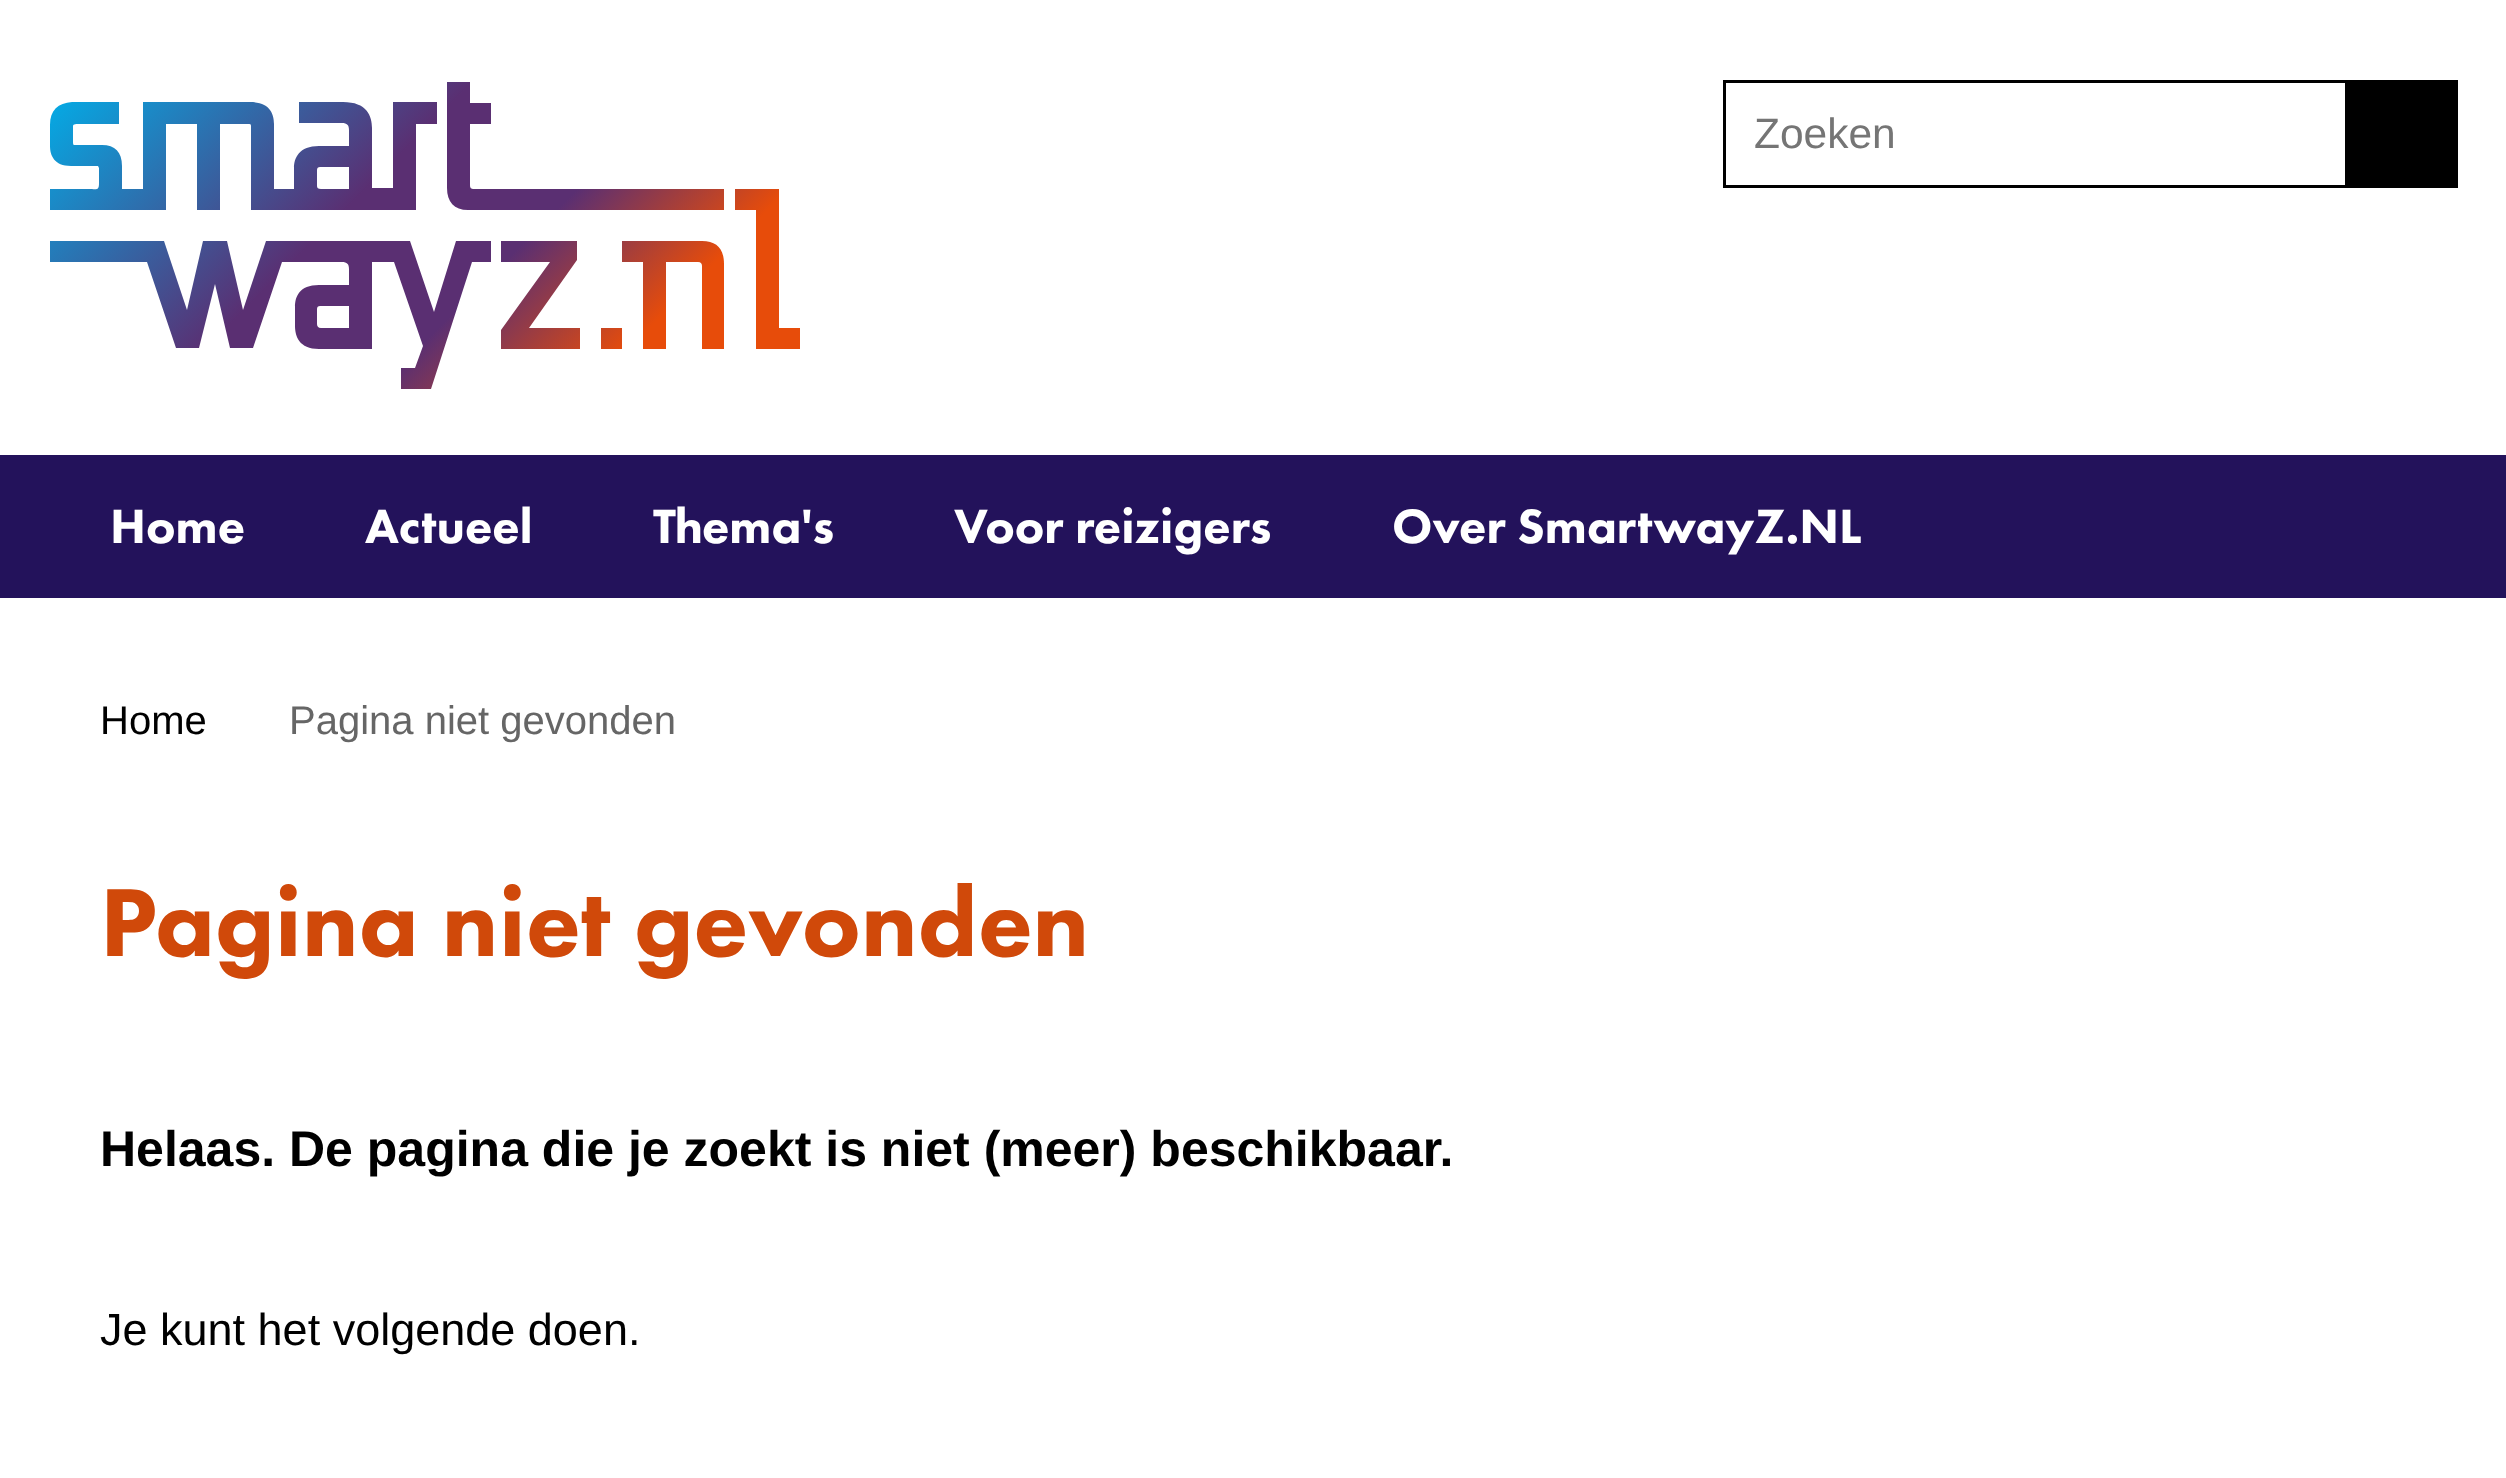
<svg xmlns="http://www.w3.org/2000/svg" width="2506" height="1478">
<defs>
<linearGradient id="g1" gradientUnits="userSpaceOnUse" x1="161" y1="-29" x2="689" y2="500"><stop offset="0" stop-color="#00b0ea"/><stop offset="0.4" stop-color="#5a2f72"/><stop offset="0.6" stop-color="#5a2f72"/><stop offset="0.8" stop-color="#e74c0a"/></linearGradient>
</defs>
<rect width="100%" height="100%" fill="#fff"/>
<path d="M724 189v21h-256c-14 0-21-8-21-22v-106h23v21h21v21h-21v61c0 3 1 4 4 4zm55 139v-139h-44v21h21v139h44v-21zm-300-87h-23l-22 71l-24-71h-144l-23 69l-16-69h-24l-16 69l-23-69h-114v21h97l29 86h23l16-64l15 64h23l29-86h60c5 0 7 2 7 7v16h-30c-20 0-24 12-24 22v19c0 10 4 23 24 23h53v-87h22l29 84l-8 22h-14v21h30l41-127h19v-21zm-429-31v-21h38c9 0 11 2 11-6v-15l-1-2c0 0 0 0-2 0h-25c-17 0-21-11-21-20v-21c0-15 8-22 22-23h47v22h-41c-5 0-5 1-5 3v15c0 3 1 3 1 3h28c13 0 20 7 20 21v23h21v-87h107c20 0 24 12 24 22v65h20v-21c0-10 5-22 25-22h30v-16c0-5-2-7-7-7h-43v-21h44c24 0 29 14 29 26v60h21v-86h44v22h-21v86h-165v-84c0-2-1-2-3-2h-28v86h-23v-86h-31v86zm267-24v-16c0-2 1-3 3-3h29v22h-28c-3 0-4-1-4-3zm212 142l48-68v-19h-76v21h49l-49 68v19h79v-21zm195-64v85h-22v-83c0-2-1-4-4-4h-32v87h-23v-87h-21v-21h80c15 0 22 8 22 23zm-375 42v22h-28c-3 0-4-2-4-4v-15c0-2 1-3 3-3zm252 43v-21h21v21z" fill="url(#g1)" fill-rule="evenodd"/>
<rect x="1724.5" y="81.5" width="622" height="105" fill="none" stroke="#000" stroke-width="3"/>
<text x="1754" y="148" style="font-family:Liberation Sans;font-size:42.5px;fill:#757575">Zoeken</text>
<rect x="2348" y="80" width="110" height="108" fill="#000"/>
<rect y="455" width="2506" height="143" fill="#23125b"/>
<text x="110" y="543" style="font-family:Futura PT;font-size:50px;font-weight:900;fill:#fff">Home</text>
<text x="365" y="543" style="font-family:Futura PT;font-size:50px;font-weight:900;fill:#fff">Actueel</text>
<text x="653" y="543" style="font-family:Futura PT;font-size:50px;font-weight:900;fill:#fff">Thema's</text>
<text x="954" y="543" style="font-family:Futura PT;font-size:50px;font-weight:900;fill:#fff">Voor reizigers</text>
<text x="1392" y="543" style="font-family:Futura PT;font-size:50px;font-weight:900;fill:#fff">Over SmartwayZ.NL</text>
<text x="100" y="734" style="font-family:Liberation Sans;font-size:40px;fill:#000">Home</text>
<text x="289" y="734" style="font-family:Liberation Sans;font-size:40px;fill:#666">Pagina niet gevonden</text>
<text x="100" y="956" style="font-family:Futura PT;font-size:100px;font-weight:900;fill:#d0490a">Pagina niet gevonden</text>
<text x="100" y="1166" style="font-family:Liberation Sans;font-size:50px;font-weight:bold;fill:#000">Helaas. De pagina die je zoekt is niet (meer) beschikbaar.</text>
<text x="100" y="1345" style="font-family:Liberation Sans;font-size:45px;fill:#000">Je kunt het volgende doen.</text>
</svg>
